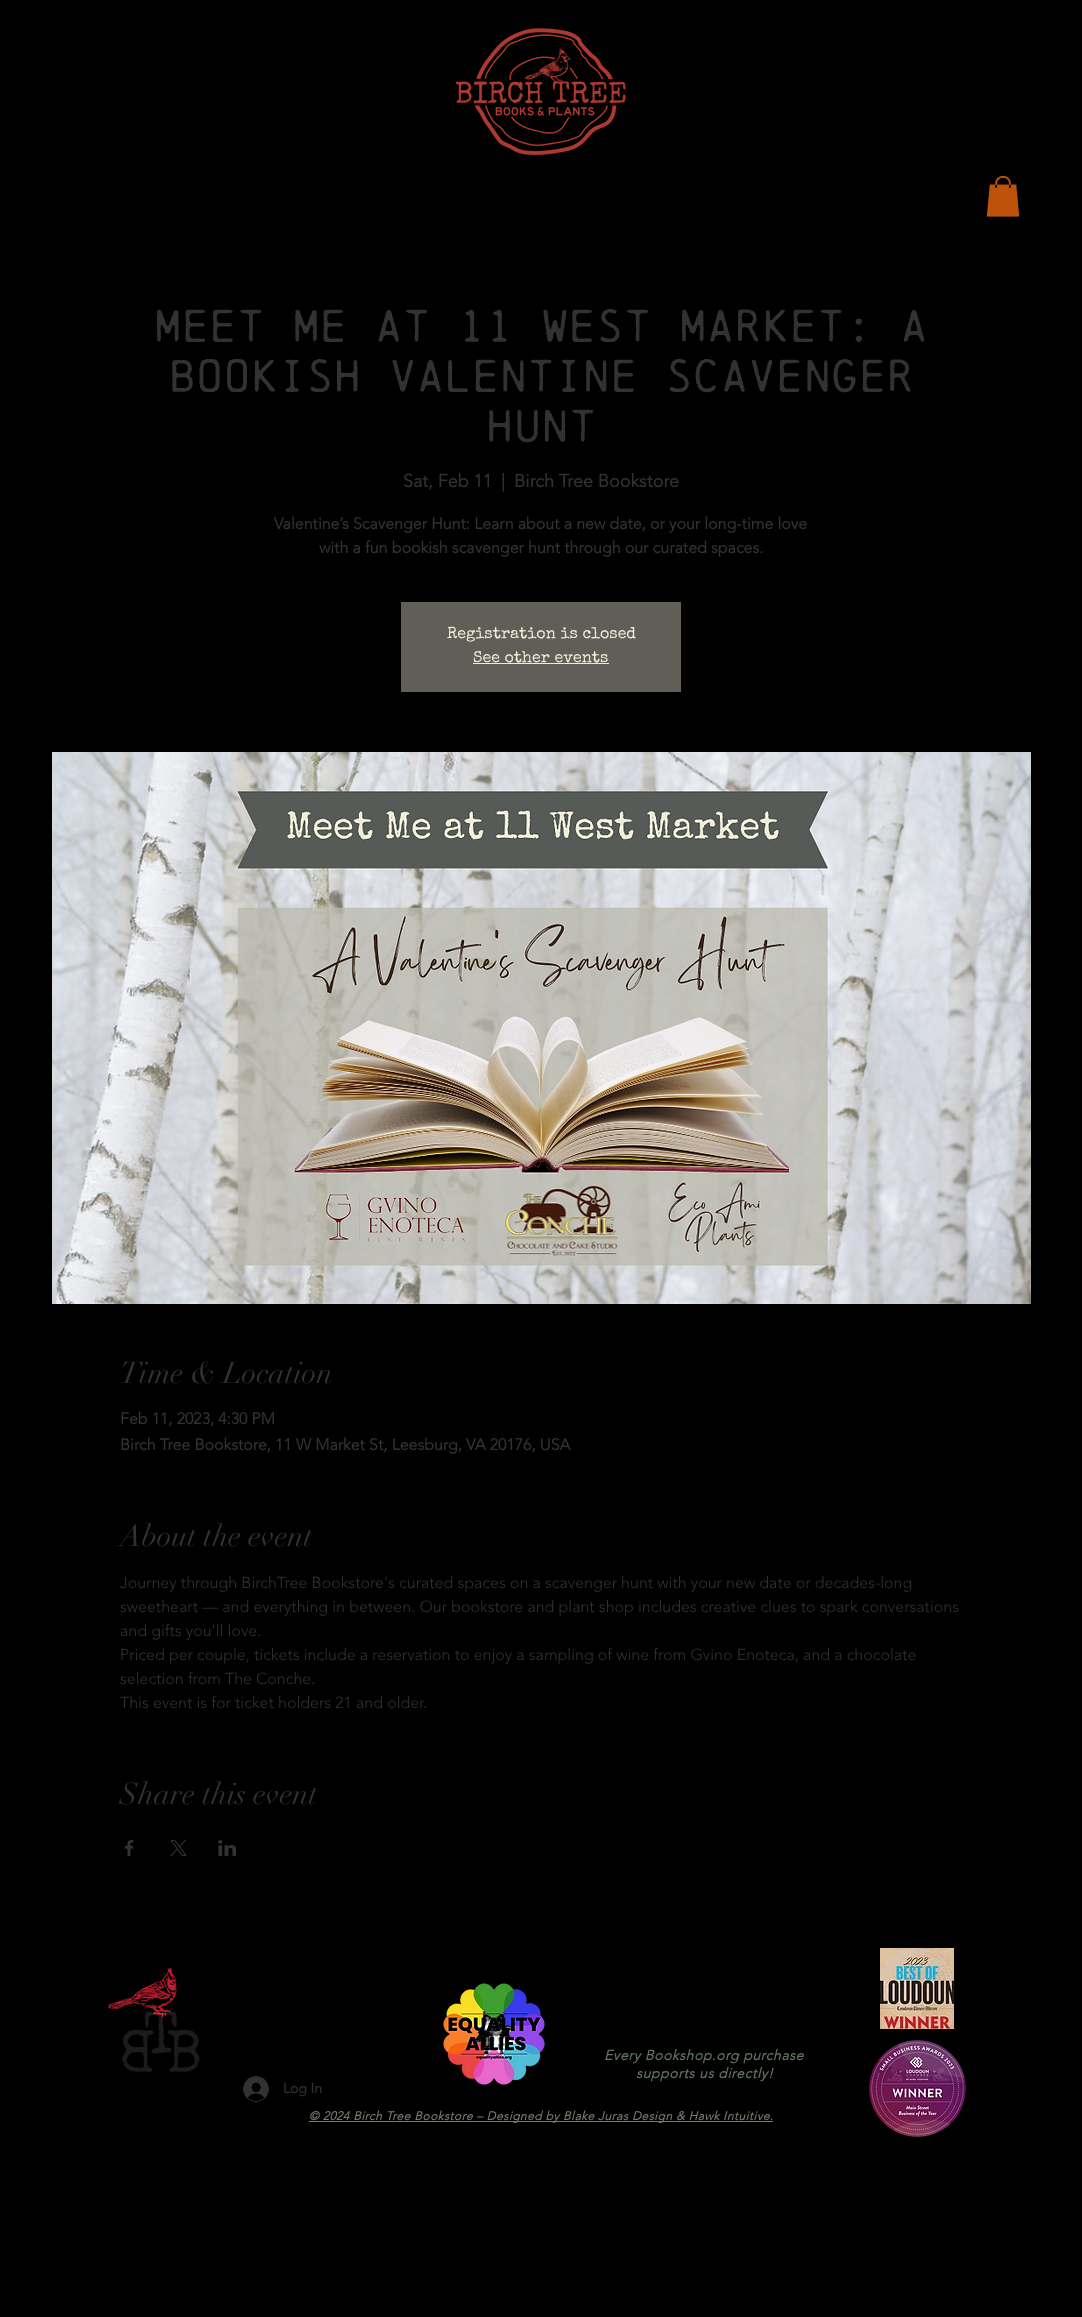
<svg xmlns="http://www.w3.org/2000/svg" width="1082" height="2317">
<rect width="100%" height="100%" fill="#000"/>
<image x="455" y="28" width="171" height="127" href="media/1.png"/>
<image x="986" y="176" width="34" height="41" href="media/2.png"/>
<text x="154" y="342" style="font-family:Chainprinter;font-size:42px;fill:#333132">Meet Me at 11 West Market: A</text>
<text x="168" y="392" style="font-family:Chainprinter;font-size:42px;fill:#333132">Bookish Valentine Scavenger</text>
<text x="486" y="442" style="font-family:Chainprinter;font-size:42px;fill:#333132">Hunt</text>
<text x="403" y="487" style="font-family:'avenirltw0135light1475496';font-size:18px;font-weight:bold;fill:#333132">Sat, Feb 11</text>
<text x="501" y="487" style="font-family:'avenirltw0135light1475496';font-size:18px;font-weight:bold;fill:#333132">|</text>
<text x="514" y="487" style="font-family:'avenirltw0135light1475496';font-size:18px;font-weight:bold;fill:#333132">Birch Tree Bookstore</text>
<text x="274" y="529" style="font-family:'avenirltw0135light1475496';font-size:16px;font-weight:bold;fill:#333132">Valentine’s Scavenger Hunt: Learn about a new date, or your long-time love</text>
<text x="319" y="553" style="font-family:'avenirltw0135light1475496';font-size:16px;font-weight:bold;fill:#333132">with a fun bookish scavenger hunt through our curated spaces.</text>
<rect x="401" y="602" width="280" height="90" fill="#605e56"/>
<text x="447" y="638" style="font-family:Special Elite;font-size:16px;fill:#efecd6">Registration is closed</text>
<text x="473" y="662" style="font-family:Special Elite;font-size:16px;fill:#efecd6">See other events</text>
<rect x="473" y="663" width="136" height="1" fill="#efecd6"/>
<image x="52" y="752" width="979" height="552" href="media/3.png"/>
<text x="120" y="1383" style="font-family:didot;font-size:30px;fill:#333132">Time &amp; Location</text>
<text x="120" y="1424" style="font-family:'avenirltw0135light1475496';font-size:16px;font-weight:bold;fill:#333132">Feb 11, 2023, 4:30 PM</text>
<text x="120" y="1450" style="font-family:'avenirltw0135light1475496';font-size:16px;font-weight:bold;fill:#333132">Birch Tree Bookstore, 11 W Market St, Leesburg, VA 20176, USA</text>
<text x="120" y="1546" style="font-family:didot;font-size:30px;fill:#333132">About the event</text>
<text x="120" y="1588" style="font-family:'avenirltw0135light1475496';font-size:16px;font-weight:300;fill:#333132">Journey through BirchTree Bookstore's curated spaces on a scavenger hunt with your new date or decades-long</text>
<text x="120" y="1612" style="font-family:'avenirltw0135light1475496';font-size:16px;font-weight:300;fill:#333132">sweetheart — and everything in between. Our bookstore and plant shop includes creative clues to spark conversations</text>
<text x="120" y="1636" style="font-family:'avenirltw0135light1475496';font-size:16px;font-weight:300;fill:#333132">and gifts you'll love.</text>
<text x="120" y="1660" style="font-family:'avenirltw0135light1475496';font-size:16px;font-weight:300;fill:#333132">Priced per couple, tickets include a reservation to enjoy a sampling of wine from Gvino Enoteca, and a chocolate</text>
<text x="120" y="1684" style="font-family:'avenirltw0135light1475496';font-size:16px;font-weight:300;fill:#333132">selection from The Conche.</text>
<text x="120" y="1708" style="font-family:'avenirltw0135light1475496';font-size:16px;font-weight:300;fill:#333132">This event is for ticket holders 21 and older.</text>
<text x="120" y="1804" style="font-family:didot;font-size:30px;fill:#333132">Share this event</text>
<image x="125" y="1840" width="9" height="16" href="media/4.png"/>
<image x="170" y="1840" width="17" height="16" href="media/5.png"/>
<image x="218" y="1840" width="19" height="16" href="media/6.png"/>
<image x="108" y="1968" width="92" height="104" href="media/7.png"/>
<image x="443" y="1983" width="102" height="102" href="media/8.png"/>
<image x="880" y="1948" width="74" height="81" href="media/9.png"/>
<text x="604" y="2060" style="font-family:'avenirltw0135light1475496';font-size:14px;font-weight:bold;font-style:italic;letter-spacing:0.55px;fill:#637463">Every Bookshop.org purchase</text>
<text x="636" y="2078" style="font-family:'avenirltw0135light1475496';font-size:14px;font-weight:bold;font-style:italic;letter-spacing:0.55px;fill:#637463">supports us directly!</text>
<image x="869" y="2040" width="97" height="97" href="media/10.png"/>
<image x="243" y="2076" width="26" height="26" href="media/11.png"/>
<text x="283" y="2093" style="font-family:'avenirltw0135light1475496';font-size:14px;font-weight:bold;fill:#333132">Log In</text>
<rect x="309" y="2121" width="464" height="1" fill="#767d6d"/>
<text x="309" y="2120" style="font-family:'avenirltw0135light1475496';font-size:12px;font-weight:bold;font-style:italic;letter-spacing:0.48px;fill:#767d6d">© 2024 Birch Tree Bookstore – Designed by Blake Juras Design &amp; Hawk Intuitive.</text>
</svg>
